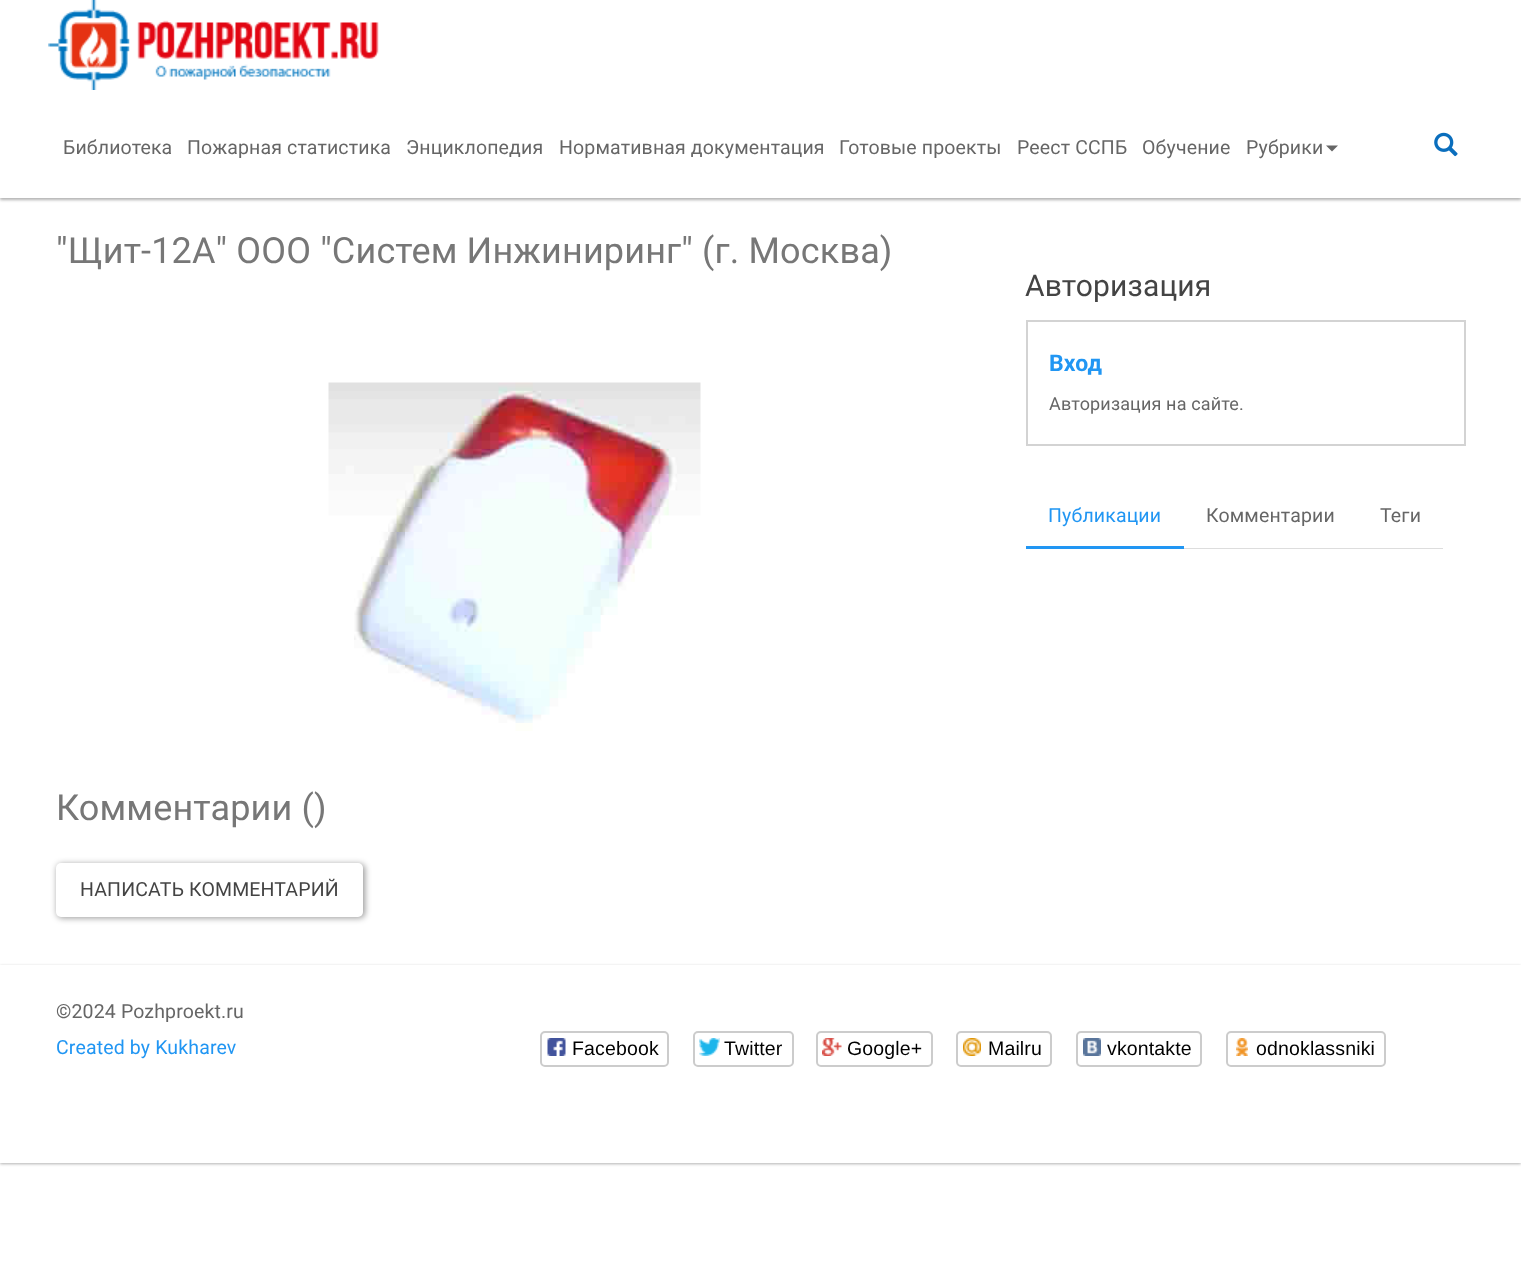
<svg xmlns="http://www.w3.org/2000/svg" width="1521" height="1276">
<rect width="100%" height="100%" fill="#fff"/>
<rect y="2" width="1521" height="198" fill="#0000004d" filter="blur(1.5px)"/>
<rect width="1521" height="198" fill="#fff"/>
<image x="48" y="0" width="331" height="90" href="media/1.png"/>
<text x="63" y="154" style="font-family:Roboto;font-size:19.5px;letter-spacing:0.15px;fill:#666">Библиотека</text>
<text x="187" y="154" style="font-family:Roboto;font-size:19.5px;letter-spacing:0.15px;fill:#666">Пожарная статистика</text>
<text x="406" y="154" style="font-family:Roboto;font-size:19.5px;letter-spacing:0.15px;fill:#666">Энциклопедия</text>
<text x="559" y="154" style="font-family:Roboto;font-size:19.5px;letter-spacing:0.15px;fill:#666">Нормативная документация</text>
<text x="839" y="154" style="font-family:Roboto;font-size:19.5px;letter-spacing:0.15px;fill:#666">Готовые проекты</text>
<text x="1017" y="154" style="font-family:Roboto;font-size:19.5px;letter-spacing:0.15px;fill:#666">Реест ССПБ</text>
<text x="1142" y="154" style="font-family:Roboto;font-size:19.5px;letter-spacing:0.15px;fill:#666">Обучение</text>
<text x="1246" y="154" style="font-family:Roboto;font-size:19.5px;letter-spacing:0.15px;fill:#666">Рубрики</text>
<path d="M1326 145.5h12l-6 6z" fill="#666"/>
<image x="1434" y="132" width="24" height="25" href="media/2.png"/>
<text x="56" y="263" style="font-family:Roboto;font-size:36px;letter-spacing:0.15px;fill:#777">"Щит-12А" ООО "Систем Инжиниринг" (г. Москва)</text>
<image x="328" y="382" width="373" height="349" href="media/3.png"/>
<text x="56" y="820" style="font-family:Roboto;font-size:36px;letter-spacing:0.15px;fill:#777">Комментарии ()</text>
<rect x="57" y="864" width="308" height="54" rx="5" fill="#00000066" filter="blur(3px)"/>
<rect x="56" y="863" width="307" height="54" rx="5" fill="#fff"/>
<text x="80" y="896" style="font-family:Roboto;font-size:19.5px;letter-spacing:0.15px;fill:#444">НАПИСАТЬ КОММЕНТАРИЙ</text>
<text x="1025" y="296" style="font-family:Roboto;font-size:30px;letter-spacing:0.15px;fill:#444">Авторизация</text>
<rect x="1027" y="321" width="438" height="124" fill="none" stroke="#d3d3d3" stroke-width="2"/>
<text x="1049" y="371" style="font-family:Roboto;font-size:23px;font-weight:bold;letter-spacing:0.15px;fill:#2196f3">Вход</text>
<text x="1049" y="410" style="font-family:Roboto;font-size:18px;letter-spacing:0.15px;fill:#666">Авторизация на сайте.</text>
<rect x="1026" y="546" width="158" height="3" fill="#2196f3"/>
<text x="1048" y="522" style="font-family:Roboto;font-size:19.5px;letter-spacing:0.15px;fill:#2196f3">Публикации</text>
<rect x="1184" y="548" width="259" height="1" fill="#ddd"/>
<text x="1206" y="522" style="font-family:Roboto;font-size:19.5px;letter-spacing:0.15px;fill:#666">Комментарии</text>
<text x="1380" y="522" style="font-family:Roboto;font-size:19.5px;letter-spacing:0.15px;fill:#666">Теги</text>
<rect y="966" width="1521" height="198" fill="#0000004d" filter="blur(1.5px)"/>
<rect y="965" width="1521" height="198" fill="#fff"/>
<text x="56" y="1018" style="font-family:Roboto;font-size:19.5px;letter-spacing:0.15px;fill:#666">©2024 Pozhproekt.ru</text>
<text x="56" y="1054" style="font-family:Roboto;font-size:19.5px;letter-spacing:0.15px;fill:#2196f3">Created by Kukharev</text>
<rect x="541" y="1032" width="127" height="34" rx="4" fill="none" stroke="#ccc" stroke-width="2"/>
<image x="547" y="1038" width="19" height="18" href="media/4.png"/>
<text x="572" y="1055" style="font-family:Liberation Sans;font-size:19.5px;letter-spacing:0.15px;fill:#000">Facebook</text>
<rect x="694" y="1032" width="99" height="34" rx="4" fill="none" stroke="#ccc" stroke-width="2"/>
<image x="699" y="1038" width="21" height="18" href="media/5.png"/>
<text x="724" y="1055" style="font-family:Liberation Sans;font-size:19.5px;letter-spacing:0.15px;fill:#000">Twitter</text>
<rect x="817" y="1032" width="115" height="34" rx="4" fill="none" stroke="#ccc" stroke-width="2"/>
<image x="822" y="1038" width="20" height="18" href="media/6.png"/>
<text x="847" y="1055" style="font-family:Liberation Sans;font-size:19.5px;letter-spacing:0.15px;fill:#000">Google+</text>
<rect x="957" y="1032" width="94" height="34" rx="4" fill="none" stroke="#ccc" stroke-width="2"/>
<image x="963" y="1038" width="18" height="18" href="media/7.png"/>
<text x="988" y="1055" style="font-family:Liberation Sans;font-size:19.5px;letter-spacing:0.15px;fill:#000">Mailru</text>
<rect x="1077" y="1032" width="124" height="34" rx="4" fill="none" stroke="#ccc" stroke-width="2"/>
<image x="1083" y="1038" width="18" height="18" href="media/8.png"/>
<text x="1107" y="1055" style="font-family:Liberation Sans;font-size:19.5px;letter-spacing:0.15px;fill:#000">vkontakte</text>
<rect x="1227" y="1032" width="158" height="34" rx="4" fill="none" stroke="#ccc" stroke-width="2"/>
<image x="1236" y="1038" width="12" height="18" href="media/9.png"/>
<text x="1256" y="1055" style="font-family:Liberation Sans;font-size:19.5px;letter-spacing:0.15px;fill:#000">odnoklassniki</text>
</svg>
